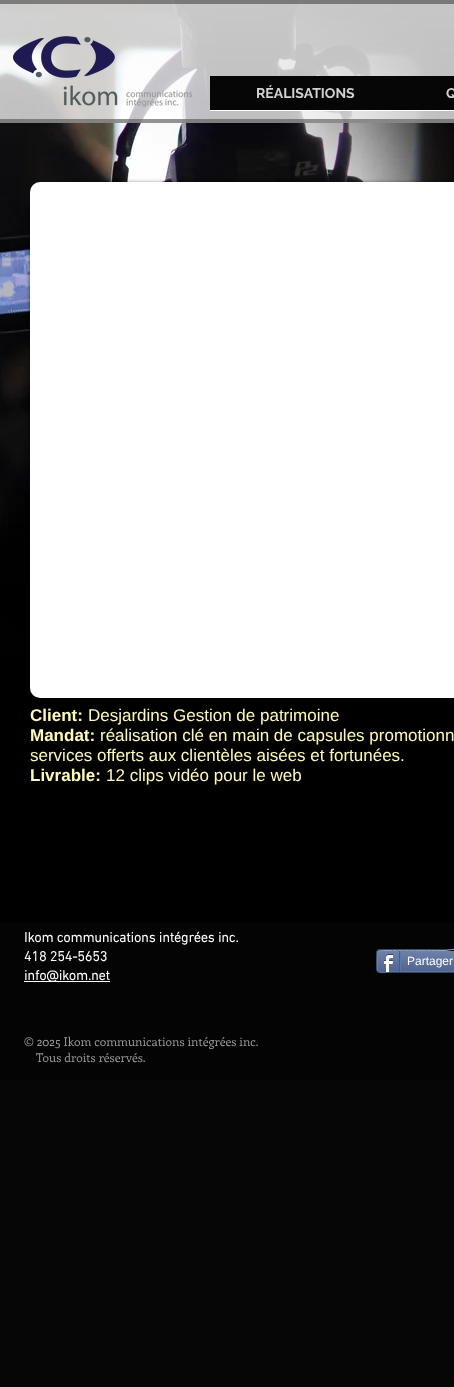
<svg xmlns="http://www.w3.org/2000/svg" width="454" height="1387">
<rect width="100%" height="100%" fill="#060606"/>
<image x="0" y="0" width="454" height="1080" href="media/1.png"/>
<rect width="454" height="123" fill="#ffffffb3"/>
<image x="0" y="4" width="454" height="119" href="media/2.png"/>
<rect width="454" height="4" fill="#5b5857a6"/>
<rect y="119" width="454" height="4" fill="#5b5857a6"/>
<image x="13" y="36" width="179" height="71" href="media/3.png"/>
<rect x="210" y="76" width="244" height="34" fill="#060606"/>
<rect x="210" y="110" width="244" height="1" fill="#fff"/>
<text x="256" y="98" style="font-family:Raleway;font-size:14px;font-weight:bold;fill:#d2cfcd">RÉALISATIONS</text>
<text x="446" y="98" style="font-family:Raleway;font-size:14px;font-weight:bold;fill:#d2cfcd">Q</text>
<rect x="30" y="183" width="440" height="516" rx="10" fill="#00000099" filter="blur(2px)"/>
<rect x="30" y="182" width="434" height="516" rx="10" fill="#fff"/>
<text x="30" y="721" style="font-family:Liberation Sans;font-size:17px;font-weight:bold;fill:#fff9b9">Client:</text>
<text x="88" y="721" style="font-family:Liberation Sans;font-size:17px;fill:#fff9b9">Desjardins Gestion de patrimoine</text>
<text x="30" y="741" style="font-family:Liberation Sans;font-size:17px;font-weight:bold;fill:#fff9b9">Mandat:</text>
<text x="100" y="741" style="font-family:Liberation Sans;font-size:17px;fill:#fff9b9">réalisation clé en main de capsules promotionn</text>
<text x="30" y="761" style="font-family:Liberation Sans;font-size:17px;fill:#fff9b9">services offerts aux clientèles aisées et fortunées.</text>
<text x="30" y="781" style="font-family:Liberation Sans;font-size:17px;font-weight:bold;fill:#fff9b9">Livrable:</text>
<text x="106" y="781" style="font-family:Liberation Sans;font-size:17px;fill:#fff9b9">12 clips vidéo pour le web</text>
<rect y="923" width="454" height="157" fill="#060606a3"/>
<text x="24" y="942" style="font-family:'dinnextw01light';font-size:14px;font-weight:bold;fill:#fff">Ikom communications intégrées inc.</text>
<text x="24" y="961" style="font-family:'dinnextw01light';font-size:14px;font-weight:bold;fill:#fff">418 254-5653</text>
<rect x="24" y="981" width="86" height="1" fill="#fff"/>
<text x="24" y="980" style="font-family:'dinnextw01light';font-size:14px;font-weight:bold;fill:#fff">info@ikom.net</text>
<rect x="376.5" y="949.5" width="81" height="23" rx="2.5" fill="none" stroke="#2d4565"/>
<image x="377" y="951" width="77" height="21" href="media/4.png"/>
<path d="M378 951c1-1 60-.5 67-.5c4.5 0 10.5-3 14 .5" fill="none" stroke="#9aabc6"/>
<path d="M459 971c-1 1-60 .5-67 .5c-4.5 0-10.5 3-14-.5" fill="none" stroke="#6176a3"/>
<path d="M378 971c-1-.5-1-19.5 0-20" fill="none" stroke="#6f83ad"/>
<image x="383" y="954" width="10" height="18" href="media/5.png"/>
<rect x="399" y="951" width="1" height="21" fill="#425e85"/>
<text x="407" y="965" style="font-family:Liberation Sans;font-size:12px;fill:#fff">Partager</text>
<rect x="400" y="951" width="1" height="20" fill="#6176a3"/>
<text x="24" y="1046" style="font-family:Enriqueta;font-size:12px;fill:#9c9998">© 2025 Ikom communications intégrées inc.</text>
<text x="36" y="1062" style="font-family:Enriqueta;font-size:12px;fill:#9c9998">Tous droits réservés.</text>
</svg>
